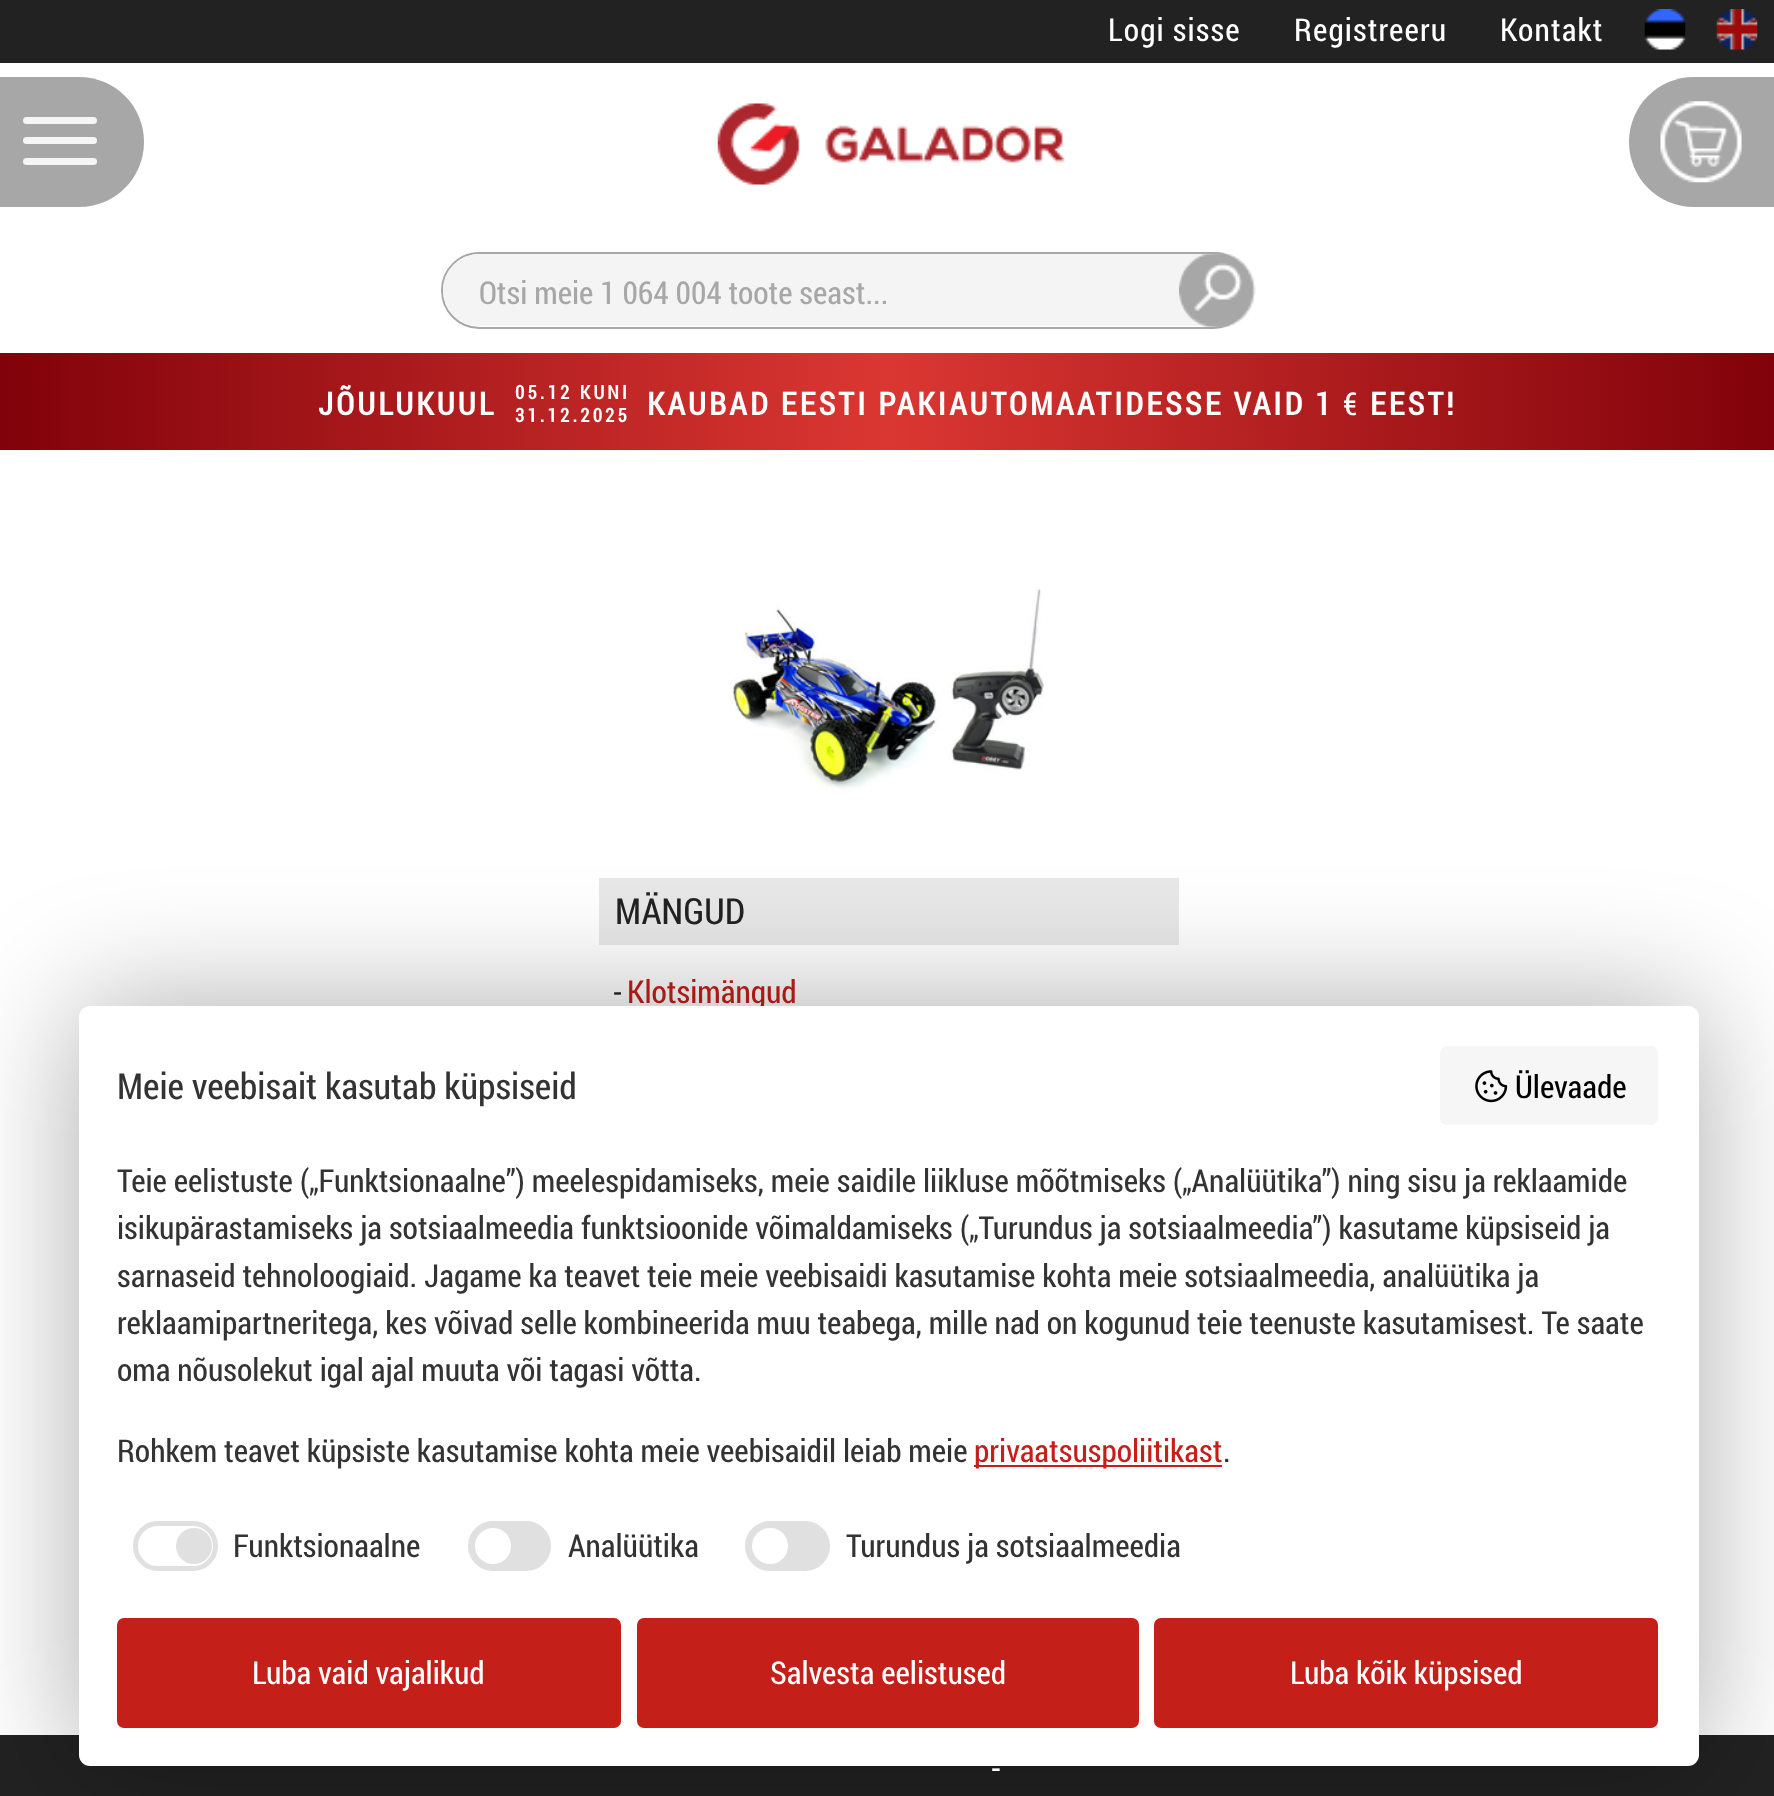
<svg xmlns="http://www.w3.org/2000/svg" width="1774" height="1796">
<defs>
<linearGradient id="g1" gradientUnits="userSpaceOnUse" x1="0" y1="402" x2="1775" y2="402"><stop offset="0" stop-color="#81020a"/><stop offset="0.5" stop-color="#db3732"/><stop offset="1" stop-color="#81020a"/></linearGradient>
</defs>
<rect width="100%" height="100%" fill="#fff"/>
<rect width="1774" height="63" fill="#222"/>
<text x="1108" y="41" style="font-family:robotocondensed;font-size:31.5px;letter-spacing:1.1px;fill:#fff">Logi sisse</text>
<text x="1294" y="41" style="font-family:robotocondensed;font-size:31.5px;letter-spacing:1.1px;fill:#fff">Registreeru</text>
<text x="1500" y="41" style="font-family:robotocondensed;font-size:31.5px;letter-spacing:1.1px;fill:#fff">Kontakt</text>
<image x="1644" y="9" width="42" height="41" href="media/1.png"/>
<image x="1716" y="9" width="42" height="41" href="media/2.png"/>
<path d="M0 77h79c36 0 65 29 65 65c0 36-29 65-65 65h-79z" fill="#a7a7a7"/>
<rect x="23" y="117" width="74" height="7" rx="3.5" fill="#f5f5f5"/>
<rect x="23" y="137" width="74" height="7" rx="3.5" fill="#f5f5f5"/>
<rect x="23" y="158" width="74" height="7" rx="3.5" fill="#f5f5f5"/>
<image x="717" y="103" width="348" height="82" href="media/3.png"/>
<path d="M1694 77h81v130h-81c-36 0-65-29-65-65c0-36 29-65 65-65z" fill="#a7a7a7"/>
<image x="1660" y="101" width="82" height="82" href="media/4.png"/>
<rect x="442" y="253" width="808" height="75" rx="37.5" fill="none" stroke="#a7a7a7" stroke-width="2"/>
<rect x="443" y="254" width="806" height="72" rx="36" fill="#f4f4f4"/>
<text x="479" y="304" style="font-family:robotocondensed;font-size:31.5px;fill:#a7a7a7">Otsi meie 1 064 004 toote seast...</text>
<image x="1179" y="252" width="77" height="77" href="media/5.png"/>
<rect y="353" width="1774" height="97" fill="url(#g1)"/>
<text x="318" y="415" style="font-family:robotocondensed;font-size:31.5px;font-weight:bold;letter-spacing:3.15px;fill:#fff">JÕULUKUUL</text>
<text x="515" y="399" style="font-family:robotocondensed;font-size:19px;font-weight:bold;letter-spacing:3.15px;fill:#fff">05.12 KUNI</text>
<text x="515" y="422" style="font-family:robotocondensed;font-size:19px;font-weight:bold;letter-spacing:3.15px;fill:#fff">31.12.2025</text>
<text x="647" y="415" style="font-family:robotocondensed;font-size:31.5px;font-weight:bold;letter-spacing:3.15px;fill:#fff">KAUBAD EESTI PAKIAUTOMAATIDESSE VAID 1</text>
<text x="1343" y="415" style="font-family:robotocondensed;font-size:31.5px;letter-spacing:3.15px;fill:#fff">€</text>
<text x="1370" y="415" style="font-family:robotocondensed;font-size:31.5px;font-weight:bold;letter-spacing:3.15px;fill:#fff">EEST!</text>
<image x="730" y="587" width="314" height="205" href="media/6.png"/>
<rect x="599" y="878" width="580" height="67" fill="#e8e8e8"/>
<text x="615" y="924" style="font-family:robotocondensed;font-size:36px;fill:#222">MÄNGUD</text>
<text x="613" y="1003" style="font-family:robotocondensed;font-size:31.5px;fill:#222">-</text>
<text x="627" y="1003" style="font-family:robotocondensed;font-size:31.5px;fill:#c41f19">Klotsimängud</text>
<rect y="1735" width="1774" height="61" fill="#222"/>
<rect x="79" y="1006" width="1620" height="760" rx="11" fill="#00000054" filter="blur(63px)"/>
<rect x="79" y="1006" width="1620" height="760" rx="11" fill="#fff"/>
<text x="117" y="1099" style="font-family:robotocondensed;font-size:36px;fill:#333">Meie veebisait kasutab küpsiseid</text>
<rect x="1440" y="1046" width="218" height="79" rx="7" fill="#f6f6f6"/>
<image x="1475" y="1070" width="33" height="33" href="media/7.png"/>
<text x="1515" y="1098" style="font-family:robotocondensed;font-size:31.5px;fill:#000">Ülevaade</text>
<text x="117" y="1192" style="font-family:robotocondensed;font-size:31.5px;fill:#333">Teie eelistuste („Funktsionaalne”) meelespidamiseks, meie saidile liikluse mõõtmiseks („Analüütika”) ning sisu ja reklaamide</text>
<text x="117" y="1239" style="font-family:robotocondensed;font-size:31.5px;fill:#333">isikupärastamiseks ja sotsiaalmeedia funktsioonide võimaldamiseks („Turundus ja sotsiaalmeedia”) kasutame küpsiseid ja</text>
<text x="117" y="1287" style="font-family:robotocondensed;font-size:31.5px;fill:#333">sarnaseid tehnoloogiaid. Jagame ka teavet teie meie veebisaidi kasutamise kohta meie sotsiaalmeedia, analüütika ja</text>
<text x="117" y="1334" style="font-family:robotocondensed;font-size:31.5px;fill:#333">reklaamipartneritega, kes võivad selle kombineerida muu teabega, mille nad on kogunud teie teenuste kasutamisest. Te saate</text>
<text x="117" y="1381" style="font-family:robotocondensed;font-size:31.5px;fill:#333">oma nõusolekut igal ajal muuta või tagasi võtta.</text>
<text x="117" y="1462" style="font-family:robotocondensed;font-size:31.5px;fill:#333">Rohkem teavet küpsiste kasutamise kohta meie veebisaidil leiab meie</text>
<rect x="974" y="1465" width="248" height="2" fill="#c41f19"/>
<text x="974" y="1462" style="font-family:robotocondensed;font-size:31.5px;fill:#c41f19">privaatsuspoliitikast</text>
<text x="1223" y="1462" style="font-family:robotocondensed;font-size:31.5px;fill:#333">.</text>
<rect x="135.5" y="1523.5" width="80" height="45" rx="22.5" fill="none" stroke="#e0e0e0" stroke-width="5"/>
<circle cx="194" cy="1546" r="18" fill="#e0e0e0"/>
<text x="233" y="1557" style="font-family:robotocondensed;font-size:31.5px;fill:#333">Funktsionaalne</text>
<rect x="470.5" y="1523.5" width="78" height="45" rx="22.5" fill="#e0e0e0" stroke="#e0e0e0" stroke-width="5"/>
<circle cx="493" cy="1546" r="18" fill="#fff"/>
<text x="568" y="1557" style="font-family:robotocondensed;font-size:31.5px;fill:#333">Analüütika</text>
<rect x="747.5" y="1523.5" width="80" height="45" rx="22.5" fill="#e0e0e0" stroke="#e0e0e0" stroke-width="5"/>
<circle cx="770" cy="1546" r="18" fill="#fff"/>
<text x="846" y="1557" style="font-family:robotocondensed;font-size:31.5px;fill:#333">Turundus ja sotsiaalmeedia</text>
<rect x="117" y="1618" width="504" height="110" rx="7" fill="#c41f19"/>
<text x="252" y="1684" style="font-family:robotocondensed;font-size:31.5px;fill:#fff">Luba vaid vajalikud</text>
<rect x="637" y="1618" width="502" height="110" rx="7" fill="#c41f19"/>
<text x="770" y="1684" style="font-family:robotocondensed;font-size:31.5px;fill:#fff">Salvesta eelistused</text>
<rect x="1154" y="1618" width="504" height="110" rx="7" fill="#c41f19"/>
<text x="1290" y="1684" style="font-family:robotocondensed;font-size:31.5px;fill:#fff">Luba kõik küpsised</text>
<text x="991" y="1780" style="font-family:robotocondensed;font-size:34px;fill:#fff">-</text>
</svg>
